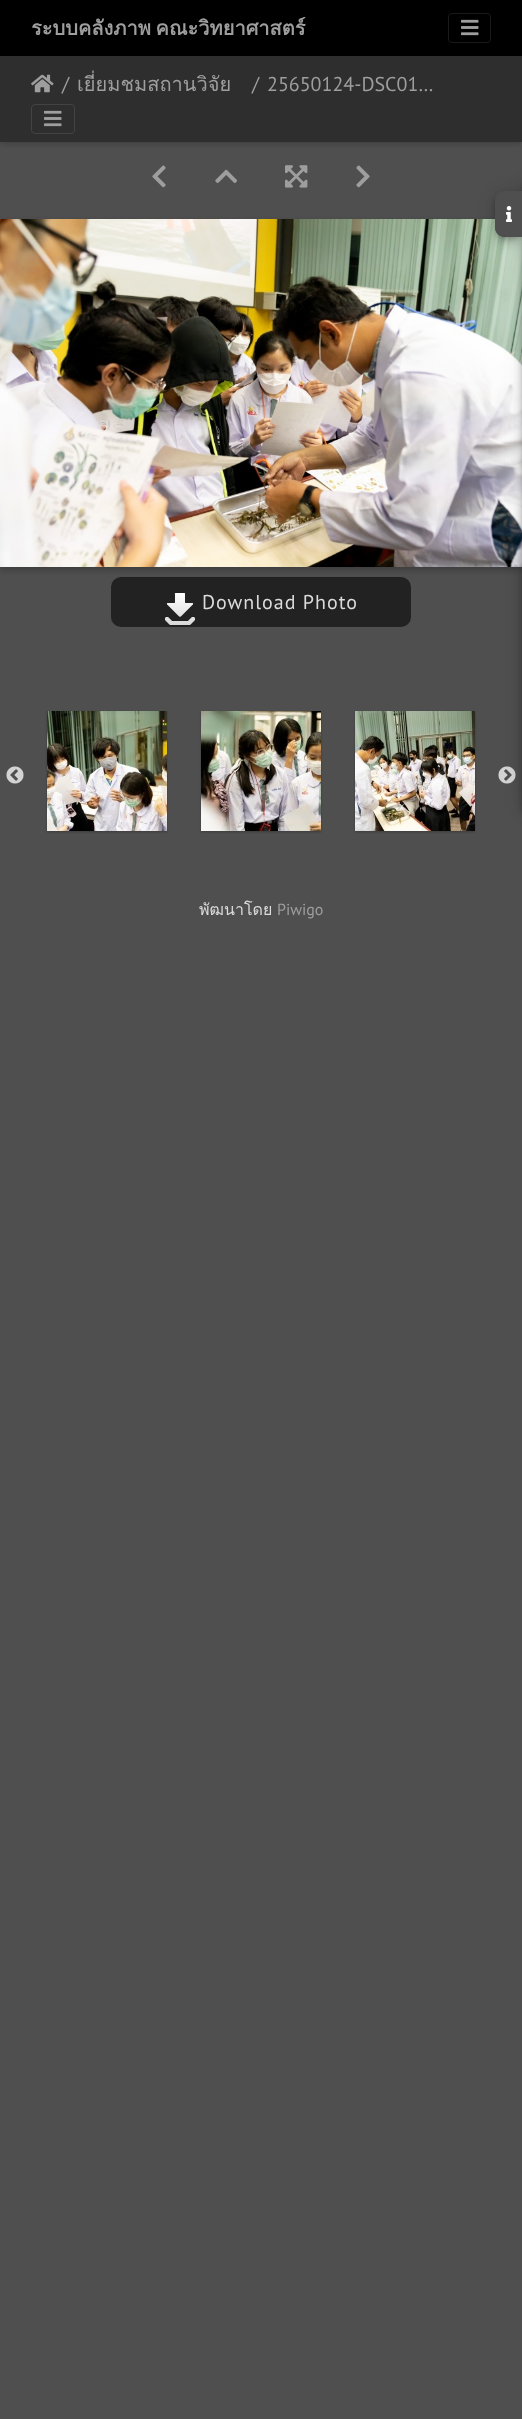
<svg xmlns="http://www.w3.org/2000/svg" width="522" height="2419">
<rect width="100%" height="100%" fill="#4f4f4f"/>
<rect x="1" y="60" width="520" height="84" fill="#00000033" filter="blur(2.5px)"/>
<rect width="522" height="56" fill="#000"/>
<text x="31" y="35" word-spacing="-2" style="font-family:Loma;font-size:20px;font-weight:bold;fill:#9e9e9e">ระบบคลังภาพ คณะวิทยาศาสตร์</text>
<rect x="448.5" y="13.5" width="42" height="29" rx="3.5" fill="none" stroke="#1a1a1a"/>
<image x="461" y="19" width="18" height="17" href="media/1.png"/>
<rect y="56" width="522" height="86" fill="#2e2e2e"/>
<image x="31" y="74" width="23" height="19" href="media/2.png"/>
<text x="62" y="91" style="font-family:PT Sans;font-size:20px;fill:#9e9e9e">/</text>
<text x="77" y="91" style="font-family:Loma;font-size:20px;fill:#9e9e9e">เยี่ยมชมสถานวิจัย</text>
<text x="252" y="91" style="font-family:PT Sans;font-size:20px;fill:#9e9e9e">/</text>
<text x="267" y="91" style="font-family:PT Sans;font-size:20px;fill:#9e9e9e">25650124-DSC01…</text>
<rect x="31.5" y="104.5" width="43" height="29" rx="3.5" fill="none" stroke="#434343"/>
<image x="44" y="110" width="18" height="17" href="media/3.png"/>
<image x="152" y="165" width="14" height="23" href="media/4.png"/>
<image x="215" y="169" width="22" height="14" href="media/5.png"/>
<image x="285" y="165" width="23" height="23" href="media/6.png"/>
<image x="356" y="165" width="14" height="23" href="media/7.png"/>
<rect x="111" y="577" width="300" height="50" rx="10" fill="#222"/>
<rect y="222" width="522" height="348" fill="#0000003b" filter="blur(3px)"/>
<image x="0" y="219" width="522" height="348" href="media/9.png"/>
<image x="498" y="766" width="18" height="18" href="media/15.png"/>
<rect x="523" y="185" width="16" height="629" rx="9" fill="#00000033" filter="blur(2.5px)"/>
<rect x="522" y="182" width="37" height="631" rx="10" fill="#0000001f" filter="blur(9px)"/>
<rect x="522" y="187" width="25" height="631" rx="10" fill="#00000024" filter="blur(5px)"/>
<rect x="496" y="195" width="25" height="44" rx="9" fill="#00000033" filter="blur(2.5px)"/>
<rect x="495" y="192" width="27" height="46" rx="10" fill="#0000001f" filter="blur(9px)"/>
<rect x="495" y="197" width="27" height="46" rx="10" fill="#00000024" filter="blur(5px)"/>
<path d="M505 191h17v46h-17c-5.5 0-10-4.5-10-10v-26c0-5.5 4.5-10 10-10z" fill="#4f4f4f"/>
<path d="M505 191h17v46h-17c-6 0-10-4-10-10v-26c0-6 4-10 10-10zm0 1h17v44h-17c-5 0-9-4-9-9v-26c0-5 4-9 9-9z" fill="#4f4f4f" fill-rule="evenodd"/>
<image x="506" y="206" width="6" height="16" href="media/8.png"/>
<image x="165" y="593" width="30" height="32" href="media/10.png"/>
<text x="202" y="609" style="font-family:PT Sans;font-size:20px;letter-spacing:1px;fill:#dbdbdb">Download Photo</text>
<image x="6" y="766" width="18" height="18" href="media/11.png"/>
<rect x="47" y="712" width="120" height="120" fill="#0000003d" filter="blur(1px)"/>
<image x="47" y="711" width="120" height="120" href="media/12.png"/>
<rect x="201" y="712" width="120" height="120" fill="#0000003d" filter="blur(1px)"/>
<image x="201" y="711" width="120" height="120" href="media/13.png"/>
<rect x="355" y="712" width="120" height="120" fill="#0000003d" filter="blur(1px)"/>
<image x="355" y="711" width="120" height="120" href="media/14.png"/>
<text x="199" y="915" style="font-family:Loma;font-size:16px;fill:#dbdbdb">พัฒนาโดย</text>
<text x="277" y="915" style="font-family:PT Sans;font-size:16px;fill:#9e9e9e">Piwigo</text>
</svg>
